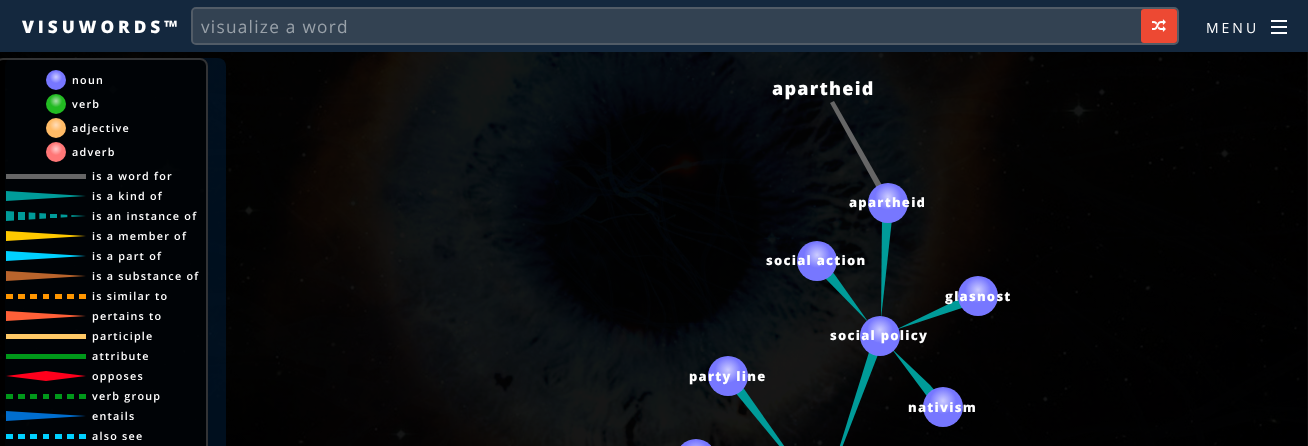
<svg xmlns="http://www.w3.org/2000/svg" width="1308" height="446">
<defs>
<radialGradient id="g1" gradientUnits="userSpaceOnUse" cx="56" cy="77" r="6.2"><stop offset="0" stop-color="#ccf"/><stop offset="1" stop-color="#77f"/></radialGradient>
<radialGradient id="g2" gradientUnits="userSpaceOnUse" cx="56" cy="101" r="6.2"><stop offset="0" stop-color="#ada"/><stop offset="1" stop-color="#2b2"/></radialGradient>
<radialGradient id="g3" gradientUnits="userSpaceOnUse" cx="56" cy="125" r="6.2"><stop offset="0" stop-color="#fdb"/><stop offset="1" stop-color="#fb6"/></radialGradient>
<radialGradient id="g4" gradientUnits="userSpaceOnUse" cx="56" cy="149" r="6.2"><stop offset="0" stop-color="#fcc"/><stop offset="1" stop-color="#f77"/></radialGradient>
<radialGradient id="g5" gradientUnits="userSpaceOnUse" cx="888" cy="197" r="13"><stop offset="0" stop-color="#ccf"/><stop offset="1" stop-color="#77f"/></radialGradient>
<radialGradient id="g6" gradientUnits="userSpaceOnUse" cx="817" cy="255" r="13"><stop offset="0" stop-color="#ccf"/><stop offset="1" stop-color="#77f"/></radialGradient>
<radialGradient id="g7" gradientUnits="userSpaceOnUse" cx="978" cy="290" r="13"><stop offset="0" stop-color="#ccf"/><stop offset="1" stop-color="#77f"/></radialGradient>
<radialGradient id="g8" gradientUnits="userSpaceOnUse" cx="880" cy="330" r="13"><stop offset="0" stop-color="#ccf"/><stop offset="1" stop-color="#77f"/></radialGradient>
<radialGradient id="g9" gradientUnits="userSpaceOnUse" cx="728" cy="370" r="13"><stop offset="0" stop-color="#ccf"/><stop offset="1" stop-color="#77f"/></radialGradient>
<radialGradient id="g10" gradientUnits="userSpaceOnUse" cx="943" cy="401" r="13"><stop offset="0" stop-color="#ccf"/><stop offset="1" stop-color="#77f"/></radialGradient>
<radialGradient id="g11" gradientUnits="userSpaceOnUse" cx="696" cy="453" r="13"><stop offset="0" stop-color="#ccf"/><stop offset="1" stop-color="#77f"/></radialGradient>
</defs>
<rect width="100%" height="100%" fill="#fff"/>
<image x="0" y="52" width="1308" height="394" href="media/1.png"/>
<rect width="1308" height="52" fill="#14283e"/>
<text x="22" y="33" style="font-family:Open Sans;font-size:17.25px;font-weight:800;letter-spacing:3.9px;fill:#fff">VISUWORDS™</text>
<rect x="192" y="8" width="986" height="36" rx="4" fill="none" stroke="#525c67" stroke-width="2"/>
<rect x="193" y="9" width="984" height="34" rx="3" fill="#90909040"/>
<text x="201" y="33" style="font-family:Open Sans;font-size:17.25px;letter-spacing:1.25px;fill:#99a1a9">visualize a word</text>
<rect x="1141" y="9" width="36" height="34" rx="3" fill="#ed4933"/>
<image x="1152" y="19" width="14" height="13" href="media/2.png"/>
<text x="1206" y="33" style="font-family:Open Sans;font-size:14px;letter-spacing:3px;fill:#fff">MENU</text>
<rect x="1271" y="20" width="16" height="2" fill="#fff"/>
<rect x="1271" y="26" width="16" height="2" fill="#fff"/>
<rect x="1271" y="32" width="16" height="2" fill="#fff"/>
<rect x="5" y="58" width="221" height="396" rx="8" fill="#0032644d"/>
<rect x="-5" y="58" width="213" height="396" rx="8" fill="#000000cc"/>
<rect x="-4" y="59" width="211" height="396" rx="7" fill="none" stroke="#64646480" stroke-width="2"/>
<circle cx="56" cy="80" r="10" fill="url(#g1)"/>
<text x="72" y="84" style="font-family:Open Sans;font-size:10.75px;font-weight:600;letter-spacing:1.25px;fill:#fff">noun</text>
<circle cx="56" cy="104" r="10" fill="url(#g2)"/>
<text x="72" y="108" style="font-family:Open Sans;font-size:10.75px;font-weight:600;letter-spacing:1.25px;fill:#fff">verb</text>
<circle cx="56" cy="128" r="10" fill="url(#g3)"/>
<text x="72" y="132" style="font-family:Open Sans;font-size:10.75px;font-weight:600;letter-spacing:1.25px;fill:#fff">adjective</text>
<circle cx="56" cy="152" r="10" fill="url(#g4)"/>
<text x="72" y="156" style="font-family:Open Sans;font-size:10.75px;font-weight:600;letter-spacing:1.25px;fill:#fff">adverb</text>
<rect x="6" y="174" width="80" height="5" fill="#666"/>
<text x="92" y="180" style="font-family:Open Sans;font-size:10.75px;font-weight:600;letter-spacing:1.25px;fill:#fff">is a word for</text>
<path d="M6 191v10l80-5z" fill="#009b99"/>
<text x="92" y="200" style="font-family:Open Sans;font-size:10.75px;font-weight:600;letter-spacing:1.25px;fill:#fff">is a kind of</text>
<image x="6" y="211" width="80" height="10" href="media/3.png"/>
<text x="92" y="220" style="font-family:Open Sans;font-size:10.75px;font-weight:600;letter-spacing:1.25px;fill:#fff">is an instance of</text>
<path d="M6 231v10l80-5z" fill="#ffc900"/>
<text x="92" y="240" style="font-family:Open Sans;font-size:10.75px;font-weight:600;letter-spacing:1.25px;fill:#fff">is a member of</text>
<path d="M6 251v10l80-5z" fill="#00d1ff"/>
<text x="92" y="260" style="font-family:Open Sans;font-size:10.75px;font-weight:600;letter-spacing:1.25px;fill:#fff">is a part of</text>
<path d="M6 271v10l80-5z" fill="#b9642c"/>
<text x="92" y="280" style="font-family:Open Sans;font-size:10.75px;font-weight:600;letter-spacing:1.25px;fill:#fff">is a substance of</text>
<rect x="6" y="294" width="7" height="5" fill="#ff9600"/>
<rect x="18" y="294" width="7" height="5" fill="#ff9600"/>
<rect x="30" y="294" width="7" height="5" fill="#ff9600"/>
<rect x="43" y="294" width="6" height="5" fill="#ff9600"/>
<rect x="55" y="294" width="7" height="5" fill="#ff9600"/>
<rect x="67" y="294" width="7" height="5" fill="#ff9600"/>
<rect x="79" y="294" width="7" height="5" fill="#ff9600"/>
<text x="92" y="300" style="font-family:Open Sans;font-size:10.75px;font-weight:600;letter-spacing:1.25px;fill:#fff">is similar to</text>
<path d="M6 311v10l80-5z" fill="#ff6038"/>
<text x="92" y="320" style="font-family:Open Sans;font-size:10.75px;font-weight:600;letter-spacing:1.25px;fill:#fff">pertains to</text>
<rect x="6" y="334" width="80" height="5" fill="#ffc966"/>
<text x="92" y="340" style="font-family:Open Sans;font-size:10.75px;font-weight:600;letter-spacing:1.25px;fill:#fff">participle</text>
<rect x="6" y="354" width="80" height="5" fill="#00991a"/>
<text x="92" y="360" style="font-family:Open Sans;font-size:10.75px;font-weight:600;letter-spacing:1.25px;fill:#fff">attribute</text>
<path d="M46 371l-40 5l40 5l40-5z" fill="#ff001c"/>
<text x="92" y="380" style="font-family:Open Sans;font-size:10.75px;font-weight:600;letter-spacing:1.25px;fill:#fff">opposes</text>
<rect x="6" y="394" width="7" height="5" fill="#00991a"/>
<rect x="18" y="394" width="7" height="5" fill="#00991a"/>
<rect x="30" y="394" width="7" height="5" fill="#00991a"/>
<rect x="43" y="394" width="6" height="5" fill="#00991a"/>
<rect x="55" y="394" width="7" height="5" fill="#00991a"/>
<rect x="67" y="394" width="7" height="5" fill="#00991a"/>
<rect x="79" y="394" width="7" height="5" fill="#00991a"/>
<text x="92" y="400" style="font-family:Open Sans;font-size:10.75px;font-weight:600;letter-spacing:1.25px;fill:#fff">verb group</text>
<path d="M6 411v10l80-5z" fill="#006ecf"/>
<text x="92" y="420" style="font-family:Open Sans;font-size:10.75px;font-weight:600;letter-spacing:1.25px;fill:#fff">entails</text>
<rect x="6" y="434" width="7" height="5" fill="#00d1ff"/>
<rect x="18" y="434" width="7" height="5" fill="#00d1ff"/>
<rect x="30" y="434" width="7" height="5" fill="#00d1ff"/>
<rect x="43" y="434" width="6" height="5" fill="#00d1ff"/>
<rect x="55" y="434" width="7" height="5" fill="#00d1ff"/>
<rect x="67" y="434" width="7" height="5" fill="#00d1ff"/>
<rect x="79" y="434" width="7" height="5" fill="#00d1ff"/>
<text x="92" y="440" style="font-family:Open Sans;font-size:10.75px;font-weight:600;letter-spacing:1.25px;fill:#fff">also see</text>
<text x="772" y="95" style="font-family:Open Sans;font-size:18px;font-weight:800;letter-spacing:1.25px;fill:#fff">apartheid</text>
<path d="M834 101l49 86l-5 3l-48-87z" fill="#666"/>
<path d="M892 219l-10-1l-1 101z" fill="#009b99"/>
<circle cx="888" cy="203" r="20" fill="url(#g5)"/>
<text x="849" y="207" style="font-family:Open Sans;font-size:13px;font-weight:800;letter-spacing:1.25px;fill:#fff">apartheid</text>
<path d="M831 270l-8 6l46 47l-34-48z" fill="#009b99"/>
<circle cx="817" cy="261" r="20" fill="url(#g6)"/>
<text x="766" y="265" style="font-family:Open Sans;font-size:13px;font-weight:800;letter-spacing:1.25px;fill:#fff">social action</text>
<path d="M965 307l-4-9l-66 32z" fill="#009b99"/>
<circle cx="978" cy="296" r="20" fill="url(#g7)"/>
<text x="945" y="301" style="font-family:Open Sans;font-size:13px;font-weight:800;letter-spacing:1.25px;fill:#fff">glasnost</text>
<path d="M879 352l-9-3l-42 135z" fill="#009b99"/>
<path d="M930 385l-39-37l38 51l7-7z" fill="#009b99"/>
<circle cx="880" cy="336" r="20" fill="url(#g8)"/>
<text x="830" y="340" style="font-family:Open Sans;font-size:13px;font-weight:800;letter-spacing:1.25px;fill:#fff">social policy</text>
<path d="M742 386l-8 5l79 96z" fill="#009b99"/>
<circle cx="728" cy="376" r="20" fill="url(#g9)"/>
<text x="689" y="381" style="font-family:Open Sans;font-size:13px;font-weight:800;letter-spacing:1.25px;fill:#fff">party line</text>
<circle cx="943" cy="407" r="20" fill="url(#g10)"/>
<text x="908" y="412" style="font-family:Open Sans;font-size:13px;font-weight:800;letter-spacing:1.25px;fill:#fff">nativism</text>
<circle cx="696" cy="459" r="20" fill="url(#g11)"/>
</svg>
